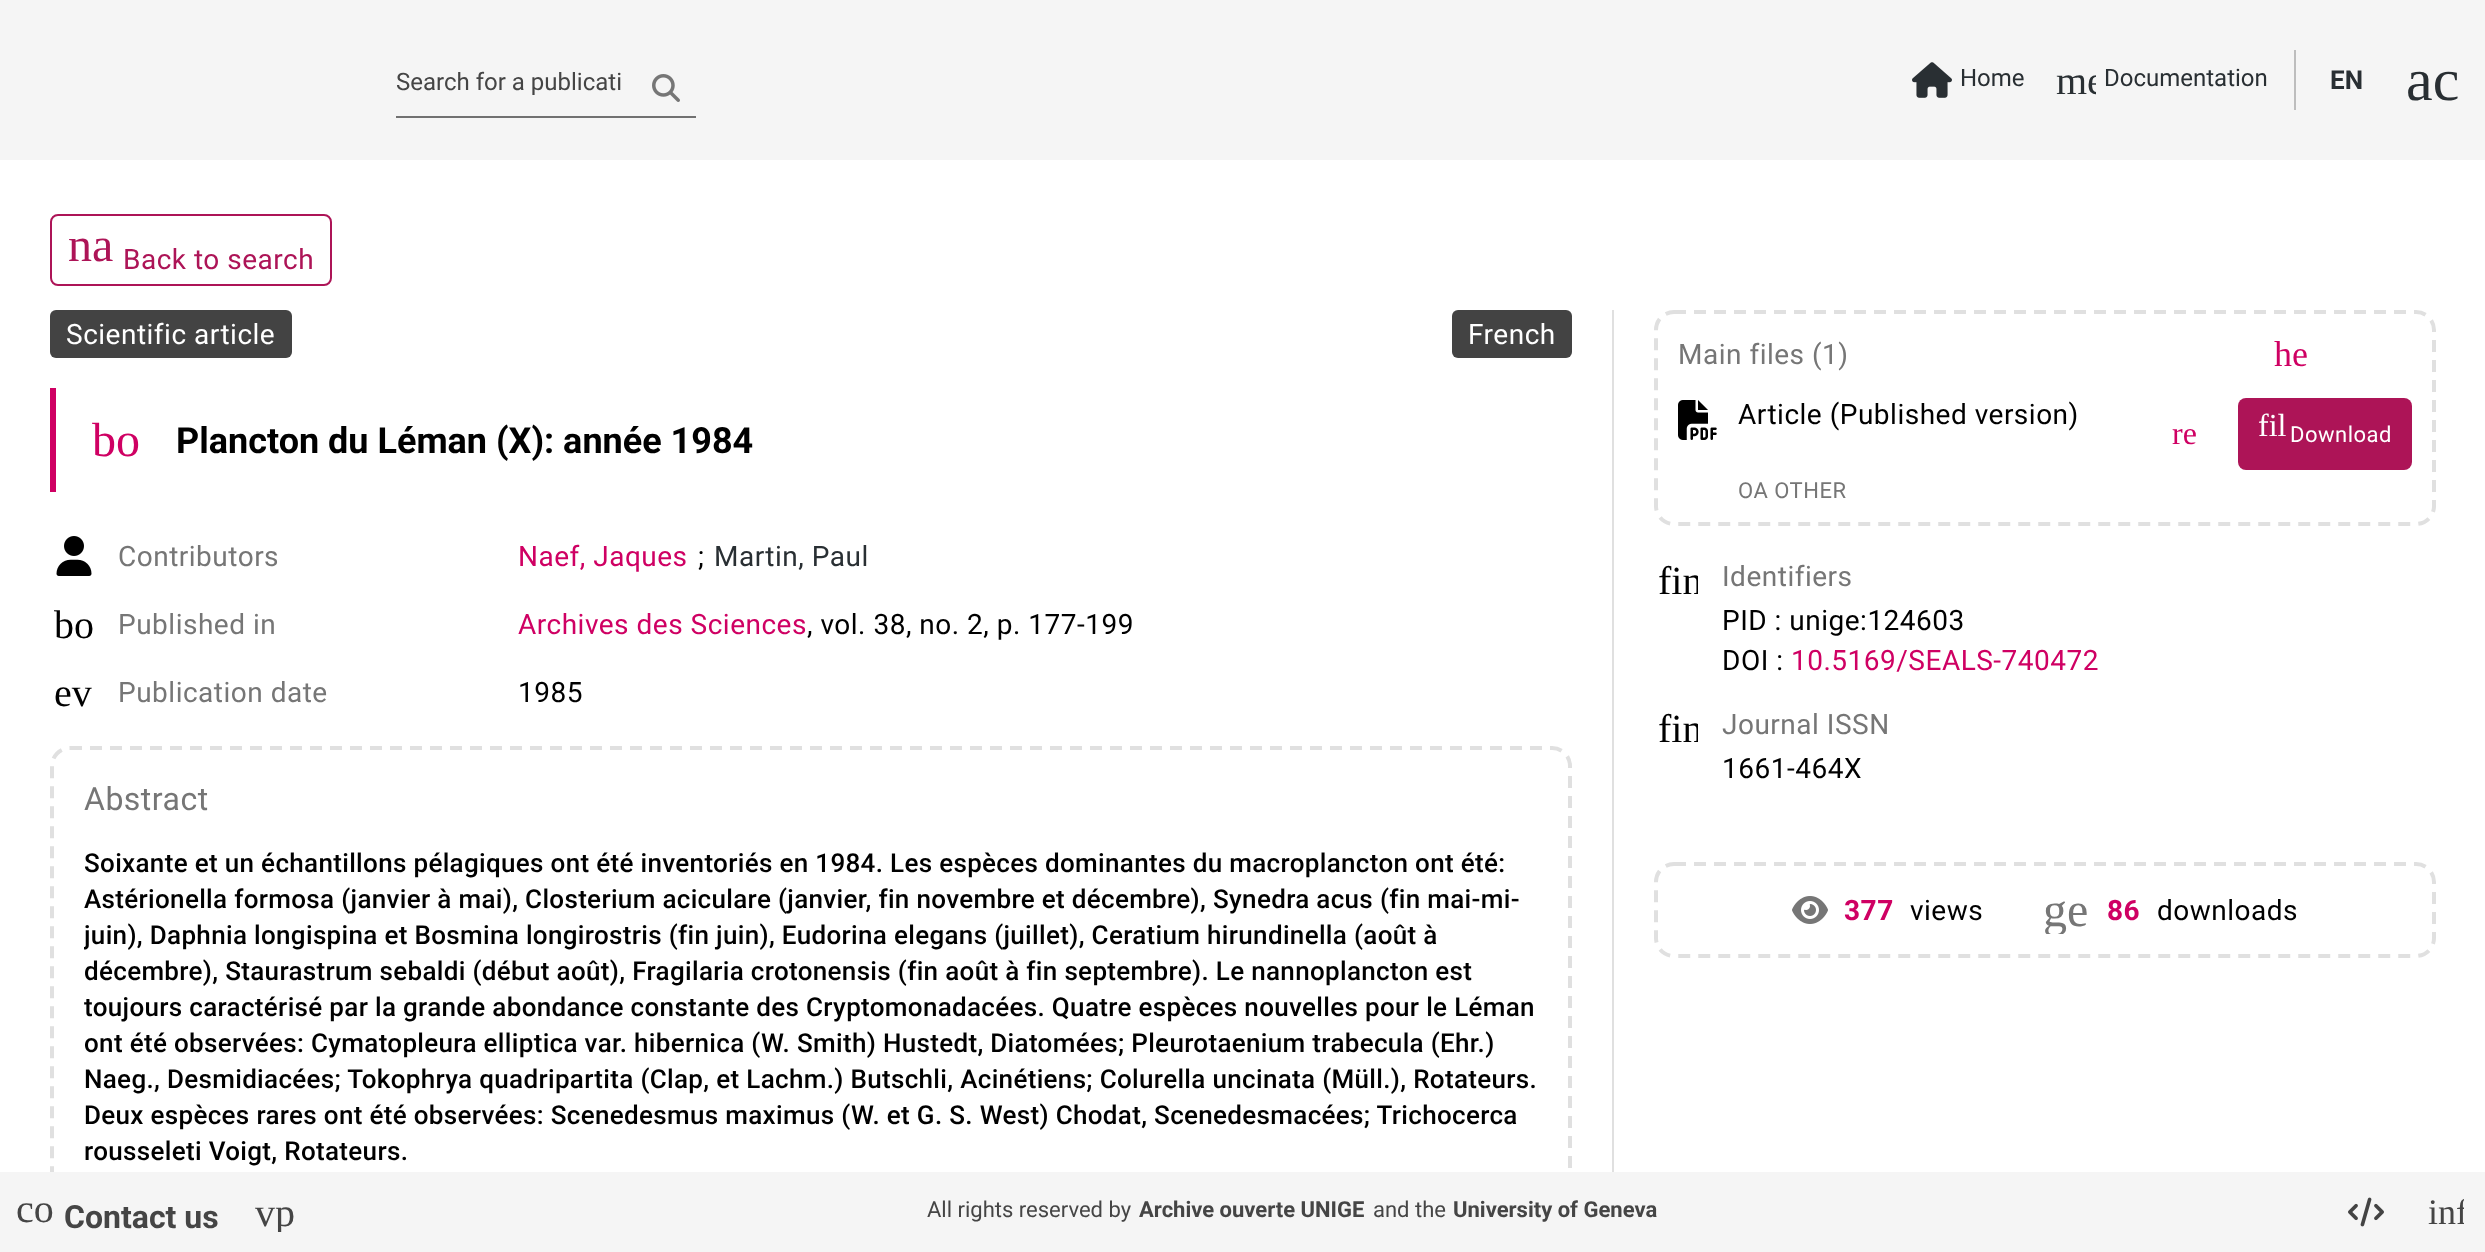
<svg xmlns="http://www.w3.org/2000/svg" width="2485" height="1252">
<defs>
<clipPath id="clip1"><rect x="2056" y="60" width="40" height="40"/></clipPath>
<clipPath id="clip2"><rect x="84" y="846" width="1454" height="324"/></clipPath>
<clipPath id="clip3"><rect x="1658" y="560" width="40" height="40"/></clipPath>
<clipPath id="clip4"><rect x="1658" y="708" width="40" height="40"/></clipPath>
<clipPath id="clip5"><rect x="2044" y="886" width="48" height="48"/></clipPath>
<clipPath id="clip6"><rect x="254" y="1192" width="40" height="40"/></clipPath>
<clipPath id="clip7"><rect x="2428" y="1194" width="36" height="36"/></clipPath>
</defs>
<rect width="100%" height="100%" fill="#fff"/>
<rect width="2485" height="160" fill="#f5f5f5"/>
<text x="396" y="90" style="font-family:Roboto;font-size:24px;fill:#454545">Search for a publicati</text>
<image x="652" y="74" width="28" height="28" href="media/1.png"/>
<rect x="396" y="116" width="300" height="2" fill="#717171"/>
<image x="1912" y="62" width="40" height="36" href="media/2.png"/>
<text x="1960" y="86" style="font-family:Roboto;font-size:24px;fill:#292f33">Home</text>
<g clip-path="url(#clip1)">
<text x="2056" y="94" style="font-family:Liberation Serif;font-size:40px;fill:#292f33">me</text>
</g>
<text x="2104" y="86" style="font-family:Roboto;font-size:24px;fill:#292f33">Documentation</text>
<rect x="2294" y="50" width="2" height="60" fill="#bdbdbd"/>
<text x="2330" y="89" style="font-family:Roboto;font-size:26px;font-weight:bold;fill:#292f33">EN</text>
<text x="2406" y="100" style="font-family:Liberation Serif;font-size:60px;fill:#292f33">ac</text>
<rect x="51" y="215" width="280" height="70" rx="7" fill="none" stroke="#ad1457" stroke-width="2"/>
<text x="68" y="261" style="font-family:Liberation Serif;font-size:48px;fill:#ad1457">na</text>
<text x="123" y="269" style="font-family:Roboto;font-size:28px;letter-spacing:0.5px;fill:#ad1457">Back to search</text>
<rect x="1612" y="310" width="2" height="862" fill="#e0e0e0"/>
<rect x="50" y="310" width="242" height="48" rx="6" fill="#434343"/>
<text x="66" y="344" style="font-family:Roboto;font-size:28px;letter-spacing:0.5px;fill:#fff">Scientific article</text>
<rect x="1452" y="310" width="120" height="48" rx="6" fill="#434343"/>
<text x="1468" y="344" style="font-family:Roboto;font-size:28px;letter-spacing:0.5px;fill:#fff">French</text>
<rect x="50" y="388" width="6" height="104" fill="#cf0063"/>
<text x="92" y="456" style="font-family:Liberation Serif;font-size:48px;fill:#cf0063">bo</text>
<text x="176" y="453" style="font-family:Roboto;font-size:36px;font-weight:bold;fill:#000">Plancton du Léman (X): année 1984</text>
<image x="56" y="536" width="36" height="40" href="media/3.png"/>
<text x="118" y="566" style="font-family:Roboto;font-size:28px;letter-spacing:0.5px;fill:#767676">Contributors</text>
<text x="518" y="566" style="font-family:Roboto;font-size:28px;letter-spacing:0.5px;fill:#cf0063">Naef, Jaques</text>
<text x="698" y="566" style="font-family:Roboto;font-size:28px;letter-spacing:0.5px;fill:#000">;</text>
<text x="714" y="566" style="font-family:Roboto;font-size:28px;letter-spacing:0.5px;fill:#292f33">Martin, Paul</text>
<text x="54" y="638" style="font-family:Liberation Serif;font-size:40px;fill:#000">bo</text>
<text x="118" y="634" style="font-family:Roboto;font-size:28px;letter-spacing:0.5px;fill:#767676">Published in</text>
<text x="518" y="634" style="font-family:Roboto;font-size:28px;letter-spacing:0.5px;fill:#cf0063">Archives des Sciences</text>
<text x="807" y="634" style="font-family:Roboto;font-size:28px;letter-spacing:0.5px;fill:#000">, vol. 38, no. 2, p. 177-199</text>
<text x="54" y="706" style="font-family:Liberation Serif;font-size:40px;fill:#000">ev</text>
<text x="118" y="702" style="font-family:Roboto;font-size:28px;letter-spacing:0.5px;fill:#767676">Publication date</text>
<text x="518" y="702" style="font-family:Roboto;font-size:28px;letter-spacing:0.5px;fill:#000">1985</text>
<path d="M70 748h1482c10 0 18 8 18 18v432c0 10-8 18-18 18h-1482c-10 0-18-8-18-18v-432c0-10 8-18 18-18z" fill="none" stroke="#e0e0e0" stroke-width="4" stroke-dasharray="12 8"/>
<text x="84" y="810" style="font-family:Roboto;font-size:32px;letter-spacing:0.5px;fill:#767676">Abstract</text>
<text x="84" y="872" style="font-family:Roboto;font-size:26px;font-weight:500;letter-spacing:0.33px;fill:#000">Soixante et un échantillons pélagiques ont été inventoriés en 1984. Les espèces dominantes du macroplancton ont été:</text>
<text x="84" y="908" style="font-family:Roboto;font-size:26px;font-weight:500;letter-spacing:0.33px;fill:#000">Astérionella formosa (janvier à mai), Closterium aciculare (janvier, fin novembre et décembre), Synedra acus (fin mai-mi-</text>
<g clip-path="url(#clip2)">
<text x="84" y="944" style="font-family:Roboto;font-size:26px;font-weight:500;letter-spacing:0.33px;fill:#000">juin), Daphnia longispina et Bosmina longirostris (fin juin), Eudorina elegans (juillet), Ceratium hirundinella (août à</text>
</g>
<text x="84" y="980" style="font-family:Roboto;font-size:26px;font-weight:500;letter-spacing:0.33px;fill:#000">décembre), Staurastrum sebaldi (début août), Fragilaria crotonensis (fin août à fin septembre). Le nannoplancton est</text>
<text x="84" y="1016" style="font-family:Roboto;font-size:26px;font-weight:500;letter-spacing:0.33px;fill:#000">toujours caractérisé par la grande abondance constante des Cryptomonadacées. Quatre espèces nouvelles pour le Léman</text>
<text x="84" y="1052" style="font-family:Roboto;font-size:26px;font-weight:500;letter-spacing:0.33px;fill:#000">ont été observées: Cymatopleura elliptica var. hibernica (W. Smith) Hustedt, Diatomées; Pleurotaenium trabecula (Ehr.)</text>
<text x="84" y="1088" style="font-family:Roboto;font-size:26px;font-weight:500;letter-spacing:0.33px;fill:#000">Naeg., Desmidiacées; Tokophrya quadripartita (Clap, et Lachm.) Butschli, Acinétiens; Colurella uncinata (Müll.), Rotateurs.</text>
<text x="84" y="1124" style="font-family:Roboto;font-size:26px;font-weight:500;letter-spacing:0.33px;fill:#000">Deux espèces rares ont été observées: Scenedesmus maximus (W. et G. S. West) Chodat, Scenedesmacées; Trichocerca</text>
<text x="84" y="1160" style="font-family:Roboto;font-size:26px;font-weight:500;letter-spacing:0.33px;fill:#000">rousseleti Voigt, Rotateurs.</text>
<path d="M1674 312h742c10 0 18 8 18 18v176c0 10-8 18-18 18h-742c-10 0-18-8-18-18v-176c0-10 8-18 18-18z" fill="none" stroke="#e0e0e0" stroke-width="4" stroke-dasharray="12 8"/>
<text x="1678" y="364" style="font-family:Roboto;font-size:28px;letter-spacing:0.5px;fill:#767676">Main files (1)</text>
<text x="2274" y="366" style="font-family:Liberation Serif;font-size:36px;fill:#cf0063">he</text>
<image x="1678" y="400" width="39" height="40" href="media/4.png"/>
<text x="1738" y="424" style="font-family:Roboto;font-size:28px;letter-spacing:0.5px;fill:#000">Article (Published version)</text>
<text x="1738" y="498" style="font-family:Roboto;font-size:22px;letter-spacing:0.5px;fill:#767676">OA OTHER</text>
<text x="2172" y="444" style="font-family:Liberation Serif;font-size:32px;fill:#cf0063">re</text>
<rect x="2238" y="398" width="174" height="72" rx="8" fill="#ad1457"/>
<text x="2258" y="436" style="font-family:Liberation Serif;font-size:32px;fill:#fff">fil</text>
<text x="2290" y="442" style="font-family:Roboto;font-size:22px;letter-spacing:0.5px;fill:#fff">Download</text>
<g clip-path="url(#clip3)">
<text x="1658" y="594" style="font-family:Liberation Serif;font-size:40px;fill:#000">fin</text>
</g>
<text x="1722" y="586" style="font-family:Roboto;font-size:28px;letter-spacing:0.5px;fill:#767676">Identifiers</text>
<text x="1722" y="630" style="font-family:Roboto;font-size:28px;letter-spacing:0.5px;fill:#000">PID : unige:124603</text>
<text x="1722" y="670" style="font-family:Roboto;font-size:28px;letter-spacing:0.5px;fill:#000">DOI :</text>
<text x="1791" y="670" style="font-family:Roboto;font-size:28px;letter-spacing:0.5px;fill:#cf0063">10.5169/SEALS-740472</text>
<g clip-path="url(#clip4)">
<text x="1658" y="742" style="font-family:Liberation Serif;font-size:40px;fill:#000">fin</text>
</g>
<text x="1722" y="734" style="font-family:Roboto;font-size:28px;letter-spacing:0.5px;fill:#767676">Journal ISSN</text>
<text x="1722" y="778" style="font-family:Roboto;font-size:28px;letter-spacing:0.5px;fill:#000">1661-464X</text>
<path d="M1674 864h742c10 0 18 8 18 18v56c0 10-8 18-18 18h-742c-10 0-18-8-18-18v-56c0-10 8-18 18-18z" fill="none" stroke="#e0e0e0" stroke-width="4" stroke-dasharray="12 8"/>
<image x="1792" y="896" width="36" height="28" href="media/5.png"/>
<text x="1844" y="920" style="font-family:Roboto;font-size:28px;font-weight:bold;letter-spacing:0.5px;fill:#cf0063">377</text>
<text x="1910" y="920" style="font-family:Roboto;font-size:28px;letter-spacing:0.5px;fill:#000">views</text>
<g clip-path="url(#clip5)">
<text x="2043" y="926" style="font-family:Liberation Serif;font-size:48px;fill:#767676">ge</text>
</g>
<text x="2107" y="920" style="font-family:Roboto;font-size:28px;font-weight:bold;letter-spacing:0.5px;fill:#cf0063">86</text>
<text x="2157" y="920" style="font-family:Roboto;font-size:28px;letter-spacing:0.5px;fill:#000">downloads</text>
<rect y="1172" width="2485" height="80" fill="#f5f5f5"/>
<text x="16" y="1222" style="font-family:Liberation Serif;font-size:40px;fill:#454545">co</text>
<text x="64" y="1228" style="font-family:Roboto;font-size:32px;font-weight:bold;fill:#454545">Contact us</text>
<g clip-path="url(#clip6)">
<text x="255" y="1226" style="font-family:Liberation Serif;font-size:40px;fill:#454545">vp</text>
</g>
<text x="927" y="1217" style="font-family:Roboto;font-size:22px;fill:#454545">All rights reserved by</text>
<text x="1139" y="1217" style="font-family:Roboto;font-size:22px;font-weight:bold;fill:#454545">Archive ouverte UNIGE</text>
<text x="1373" y="1217" style="font-family:Roboto;font-size:22px;fill:#454545">and the</text>
<text x="1453" y="1217" style="font-family:Roboto;font-size:22px;font-weight:bold;fill:#454545">University of Geneva</text>
<image x="2348" y="1197" width="36" height="30" href="media/6.png"/>
<g clip-path="url(#clip7)">
<text x="2428" y="1224" style="font-family:Liberation Serif;font-size:36px;fill:#454545">inf</text>
</g>
</svg>
